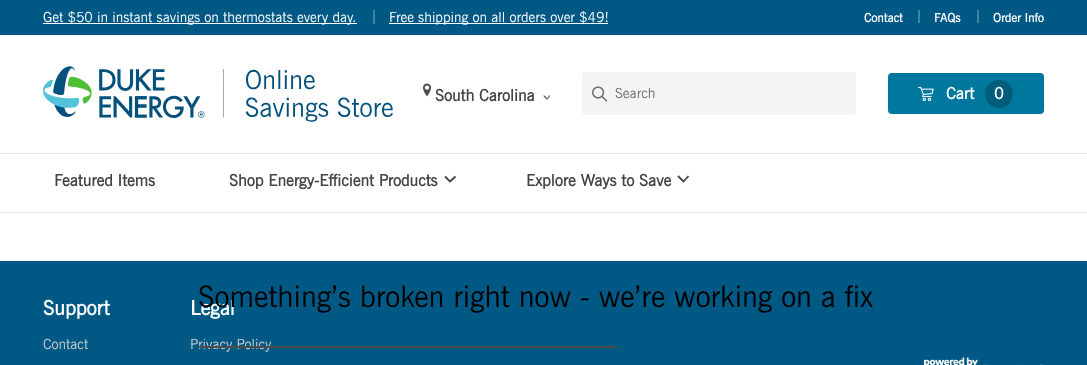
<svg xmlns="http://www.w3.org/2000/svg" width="1087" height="365">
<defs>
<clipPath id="clip1"><path d="M551 95v5h-7.5v-5z"/></clipPath>
</defs>
<rect width="100%" height="100%" fill="#fff"/>
<rect width="1087" height="35" fill="#005984"/>
<rect x="43" y="23" width="314" height="1" fill="#fff"/>
<text x="43" y="22" style="font-family:'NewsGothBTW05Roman';font-size:14px;fill:#fff">Get $50 in instant savings on thermostats every day.</text>
<rect x="373" y="10" width="2" height="14" fill="#4083a3"/>
<rect x="389" y="23" width="219" height="1" fill="#fff"/>
<text x="389" y="22" style="font-family:'NewsGothBTW05Roman';font-size:14px;fill:#fff">Free shipping on all orders over $49!</text>
<text x="864" y="22" style="font-family:'NewsGothBTW05Roman';font-size:12px;font-weight:bold;fill:#fff">Contact</text>
<rect x="918" y="10" width="2" height="13" fill="#4083a3"/>
<text x="934" y="22" style="font-family:'NewsGothBTW05Roman';font-size:12px;font-weight:bold;fill:#fff">FAQs</text>
<rect x="977" y="10" width="2" height="13" fill="#4083a3"/>
<text x="993" y="22" style="font-family:'NewsGothBTW05Roman';font-size:12px;font-weight:bold;fill:#fff">Order Info</text>
<image x="43" y="66" width="350" height="56" href="media/1.png"/>
<image x="423" y="83" width="8" height="14" href="media/2.png"/>
<text x="435" y="101" style="font-family:'NewsGothBTW05Roman';font-size:16px;font-weight:bold;fill:#444">South Carolina</text>
<g clip-path="url(#clip1)">
<path d="M543.5 95.5l3.5 3.5l3-3.5" fill="none" stroke="#4c4c4c" stroke-width="1.1"/>
</g>
<rect x="582" y="72" width="274" height="43" rx="4" fill="#f4f4f4"/>
<image x="592" y="86" width="16" height="16" href="media/3.png"/>
<text x="615" y="98" style="font-family:'NewsGothBTW05Roman';font-size:14px;fill:#707070">Search</text>
<rect x="888" y="73" width="156" height="41" rx="4" fill="#00789e"/>
<image x="918" y="86" width="16" height="16" href="media/4.png"/>
<text x="946" y="99" style="font-family:'NewsGothBTW05Roman';font-size:16px;font-weight:bold;fill:#fff">Cart</text>
<circle cx="999" cy="94" r="14" fill="#005d7a"/>
<text x="994" y="99" style="font-family:'NewsGothBTW05Roman';font-size:16px;font-weight:bold;fill:#fff">0</text>
<rect y="153" width="1087" height="1" fill="#e4e6e8"/>
<text x="54" y="186" style="font-family:'NewsGothBTW05Roman';font-size:16px;font-weight:bold;fill:#444">Featured Items</text>
<text x="229" y="186" style="font-family:'NewsGothBTW05Roman';font-size:16px;font-weight:bold;fill:#444">Shop Energy-Efficient Products</text>
<path d="M445 176.5l5 5l5.5-5" fill="none" stroke="#444" stroke-width="1.8"/>
<text x="526" y="186" style="font-family:'NewsGothBTW05Roman';font-size:16px;font-weight:bold;fill:#444">Explore Ways to Save</text>
<path d="M678 176l5.5 5.5l5-5.5" fill="none" stroke="#444" stroke-width="1.8"/>
<rect y="212" width="1087" height="1" fill="#e4e6e8"/>
<rect y="261" width="1087" height="104" fill="#005984"/>
<text x="43" y="315" style="font-family:'NewsGothBTW05Roman';font-size:20px;font-weight:bold;fill:#fff">Support</text>
<text x="43" y="349" style="font-family:'NewsGothBTW05Roman';font-size:14px;fill:#ccc">Contact</text>
<text x="190" y="315" style="font-family:'NewsGothBTW05Roman';font-size:20px;font-weight:bold;fill:#fff">Legal</text>
<text x="190" y="349" style="font-family:'NewsGothBTW05Roman';font-size:14px;fill:#ccc">Privacy Policy</text>
<image x="924" y="357" width="120" height="8" href="media/5.png"/>
<text x="198" y="307" style="font-family:'NewsGothBTW05Roman';font-size:29.6px;fill:#000">Something’s broken right now - we’re working on a fix</text>
<rect x="198" y="346" width="420" height="2" fill="#4c4c4c"/>
</svg>
